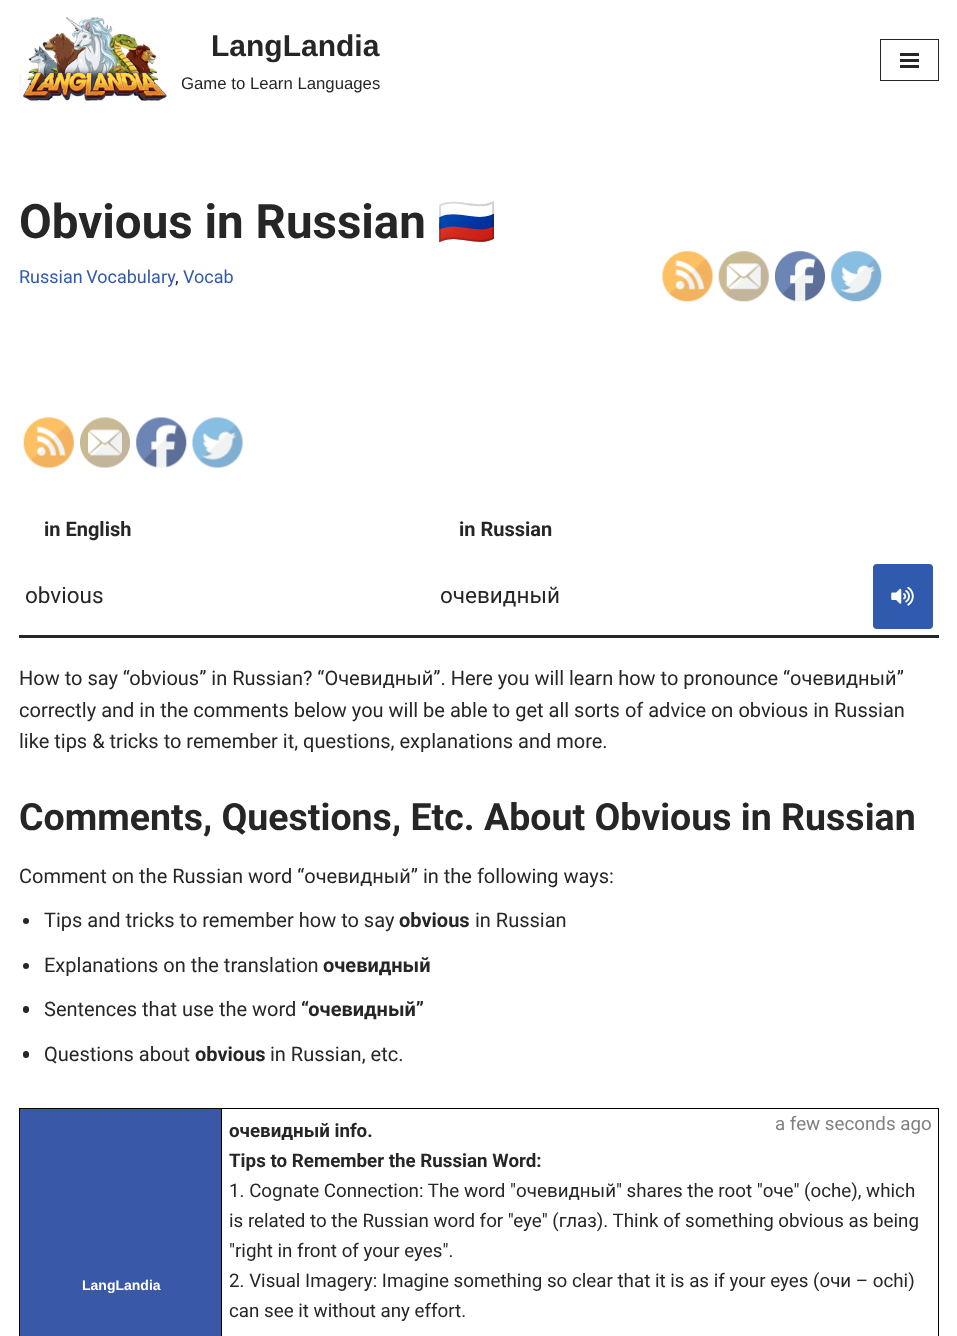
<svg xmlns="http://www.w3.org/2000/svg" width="957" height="1336">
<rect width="100%" height="100%" fill="#fff"/>
<image x="19" y="17" width="148" height="84" href="media/1.png"/>
<text x="211" y="56" style="font-family:Liberation Sans;font-size:30px;font-weight:bold;fill:#272626">LangLandia</text>
<text x="181" y="89" style="font-family:Liberation Sans;font-size:16.75px;fill:#272626">Game to Learn Languages</text>
<rect x="880.5" y="39.5" width="58" height="41" fill="none" stroke="#272626"/>
<rect x="900" y="53" width="19" height="3" fill="#272626"/>
<rect x="900" y="59" width="19" height="3" fill="#272626"/>
<rect x="900" y="65" width="19" height="3" fill="#272626"/>
<text x="19" y="238" style="font-family:Roboto;font-size:47.5px;font-weight:bold;fill:#272626">Obvious in Russian</text>
<text x="437" y="238" style="font-family:Noto Color Emoji;font-size:47.5px;font-weight:bold;fill:#272626">🇷🇺</text>
<text x="19" y="283" word-spacing="-1" style="font-family:Roboto;font-size:18px;fill:#2f5aae">Russian Vocabulary</text>
<text x="175" y="283" style="font-family:Roboto;font-size:18px;fill:#272626">,</text>
<text x="183" y="283" style="font-family:Roboto;font-size:18px;fill:#2f5aae">Vocab</text>
<image x="662" y="251" width="51" height="51" href="media/2.png"/>
<image x="718" y="251" width="51" height="51" href="media/3.png"/>
<image x="775" y="251" width="50" height="51" href="media/4.png"/>
<image x="831" y="251" width="51" height="51" href="media/5.png"/>
<image x="23" y="417" width="51" height="51" href="media/6.png"/>
<image x="80" y="417" width="50" height="51" href="media/7.png"/>
<image x="136" y="417" width="51" height="51" href="media/8.png"/>
<image x="192" y="417" width="51" height="51" href="media/9.png"/>
<text x="44" y="536" style="font-family:Roboto;font-size:20px;font-weight:bold;fill:#272626">in English</text>
<text x="459" y="536" style="font-family:Roboto;font-size:20px;font-weight:bold;fill:#272626">in Russian</text>
<rect x="19" y="635" width="920" height="3" fill="#272626"/>
<text x="25" y="603" style="font-family:Roboto;font-size:22.5px;fill:#272626">obvious</text>
<text x="440" y="603" style="font-family:Roboto;font-size:22.5px;fill:#272626">очевидный</text>
<rect x="873" y="564" width="60" height="65" rx="4" fill="#2f5aae"/>
<image x="891" y="586" width="23" height="20" href="media/10.png"/>
<text x="19" y="685" style="font-family:Roboto;font-size:20px;fill:#272626">How to say “obvious” in Russian? “Очевидный”. Here you will learn how to pronounce “очевидный”</text>
<text x="19" y="717" style="font-family:Roboto;font-size:20px;fill:#272626">correctly and in the comments below you will be able to get all sorts of advice on obvious in Russian</text>
<text x="19" y="748" style="font-family:Roboto;font-size:20px;fill:#272626">like tips &amp; tricks to remember it, questions, explanations and more.</text>
<text x="19" y="830" style="font-family:Roboto;font-size:37.5px;font-weight:bold;fill:#272626">Comments, Questions, Etc. About Obvious in Russian</text>
<text x="19" y="883" style="font-family:Roboto;font-size:20px;fill:#272626">Comment on the Russian word “очевидный” in the following ways:</text>
<circle cx="26" cy="921" r="3" fill="#272626"/>
<text x="44" y="927" style="font-family:Roboto;font-size:20px;fill:#272626">Tips and tricks to remember how to say</text>
<text x="399" y="927" style="font-family:Roboto;font-size:20px;font-weight:bold;fill:#272626">obvious</text>
<text x="475" y="927" style="font-family:Roboto;font-size:20px;fill:#272626">in Russian</text>
<circle cx="26" cy="966" r="3" fill="#272626"/>
<text x="44" y="972" style="font-family:Roboto;font-size:20px;fill:#272626">Explanations on the translation</text>
<text x="323" y="972" style="font-family:Roboto;font-size:20px;font-weight:bold;fill:#272626">очевидный</text>
<rect x="23" y="1006" width="6" height="7" rx="3" fill="#272626"/>
<text x="44" y="1016" style="font-family:Roboto;font-size:20px;fill:#272626">Sentences that use the word</text>
<text x="301" y="1016" style="font-family:Roboto;font-size:20px;font-weight:bold;fill:#272626">“очевидный”</text>
<rect x="23" y="1051" width="6" height="7" rx="3" fill="#272626"/>
<text x="44" y="1061" style="font-family:Roboto;font-size:20px;fill:#272626">Questions about</text>
<text x="195" y="1061" style="font-family:Roboto;font-size:20px;font-weight:bold;fill:#272626">obvious</text>
<text x="270" y="1061" style="font-family:Roboto;font-size:20px;fill:#272626">in Russian, etc.</text>
<rect x="20" y="1109" width="201" height="227" fill="#3959a8"/>
<rect x="19" y="1108" width="202" height="1" fill="#000"/>
<rect x="19" y="1108" width="1" height="228" fill="#000"/>
<text x="82" y="1290" style="font-family:Liberation Sans;font-size:14px;font-weight:bold;fill:#fff">LangLandia</text>
<rect x="221.5" y="1108.5" width="717" height="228" fill="none" stroke="#000"/>
<text x="229" y="1137" style="font-family:Roboto;font-size:18.75px;font-weight:bold;fill:#272626">очевидный info.</text>
<text x="775" y="1130" style="font-family:Roboto;font-size:18.75px;fill:#808080">a few seconds ago</text>
<text x="229" y="1167" style="font-family:Roboto;font-size:18.75px;font-weight:bold;fill:#272626">Tips to Remember the Russian Word:</text>
<text x="229" y="1197" style="font-family:Roboto;font-size:18.75px;fill:#272626">1. Cognate Connection: The word "очевидный" shares the root "оче" (oche), which</text>
<text x="229" y="1227" style="font-family:Roboto;font-size:18.75px;fill:#272626">is related to the Russian word for "eye" (глаз). Think of something obvious as being</text>
<text x="229" y="1257" style="font-family:Roboto;font-size:18.75px;fill:#272626">"right in front of your eyes".</text>
<text x="229" y="1287" style="font-family:Roboto;font-size:18.75px;fill:#272626">2. Visual Imagery: Imagine something so clear that it is as if your eyes (очи – ochi)</text>
<text x="229" y="1317" style="font-family:Roboto;font-size:18.75px;fill:#272626">can see it without any effort.</text>
</svg>
